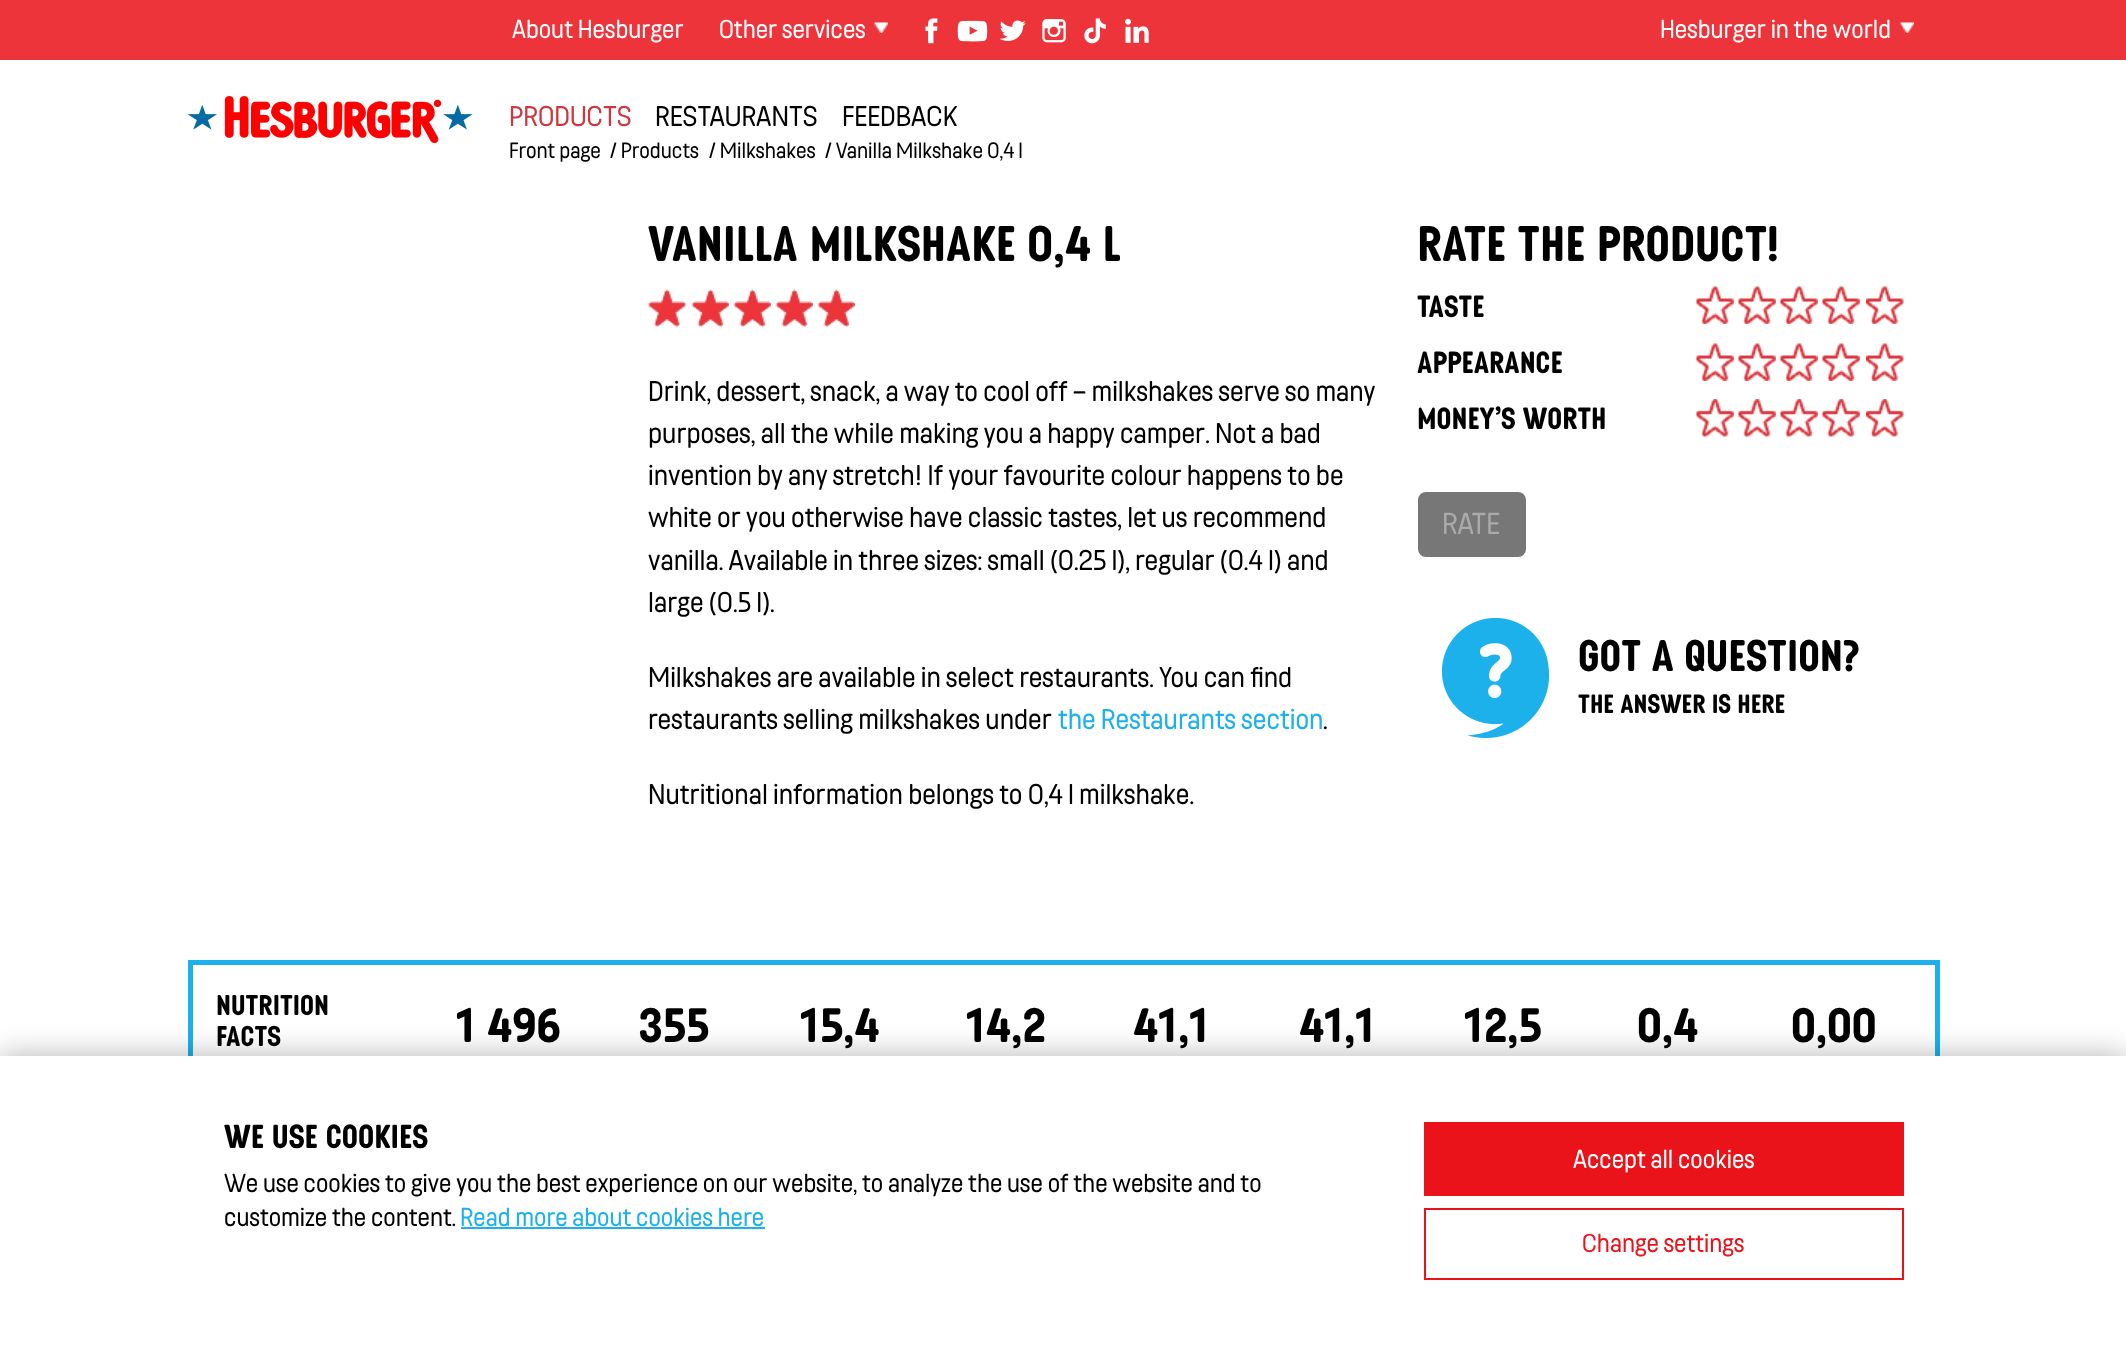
<svg xmlns="http://www.w3.org/2000/svg" width="2126" height="1345">
<rect width="100%" height="100%" fill="#fff"/>
<rect width="2126" height="60" fill="#ee343b"/>
<text x="512" y="38" style="font-family:'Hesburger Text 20';font-size:24px;fill:#fff">About Hesburger</text>
<text x="719" y="38" style="font-family:'Hesburger Text 20';font-size:24px;fill:#fff">Other services</text>
<image x="874" y="22" width="14" height="11" href="media/1.png"/>
<image x="925" y="18" width="13" height="26" href="media/2.png"/>
<image x="957" y="20" width="31" height="22" href="media/3.png"/>
<image x="999" y="20" width="27" height="21" href="media/4.png"/>
<image x="1042" y="19" width="24" height="24" href="media/5.png"/>
<image x="1084" y="18" width="22" height="26" href="media/6.png"/>
<image x="1125" y="18" width="24" height="25" href="media/7.png"/>
<text x="1660" y="38" style="font-family:'Hesburger Text 20';font-size:24px;fill:#fff">Hesburger in the world</text>
<image x="1900" y="22" width="14" height="11" href="media/8.png"/>
<image x="188" y="96" width="285" height="48" href="media/9.png"/>
<text x="509" y="126" style="font-family:'Hesburger Text 20';font-size:26.4px;fill:#cd373d">PRODUCTS</text>
<text x="655" y="126" style="font-family:'Hesburger Text 20';font-size:26.4px;fill:#000">RESTAURANTS</text>
<text x="842" y="126" style="font-family:'Hesburger Text 20';font-size:26.4px;fill:#000">FEEDBACK</text>
<text x="509" y="158" style="font-family:'Hesburger Text 20';font-size:20.5px;fill:#000">Front page</text>
<text x="610" y="158" style="font-family:'Hesburger Text 20';font-size:20.5px;fill:#000">/ Products</text>
<text x="709" y="158" style="font-family:'Hesburger Text 20';font-size:20.5px;fill:#000">/ Milkshakes</text>
<text x="825" y="158" style="font-family:'Hesburger Text 20';font-size:20.5px;fill:#000">/ Vanilla Milkshake 0,4 l</text>
<text x="648" y="261" style="font-family:'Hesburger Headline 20';font-size:54px;font-weight:900;fill:#000">VANILLA MILKSHAKE 0,4 L</text>
<image x="648" y="289" width="38" height="38" href="media/10.png"/>
<image x="691" y="289" width="38" height="38" href="media/11.png"/>
<image x="733" y="289" width="38" height="38" href="media/12.png"/>
<image x="775" y="289" width="38" height="38" href="media/13.png"/>
<image x="817" y="289" width="38" height="38" href="media/13.png"/>
<text x="648" y="401" style="font-family:'Hesburger Text 20';font-size:26.4px;fill:#000">Drink, dessert, snack, a way to cool off – milkshakes serve so many</text>
<text x="648" y="443" style="font-family:'Hesburger Text 20';font-size:26.4px;fill:#000">purposes, all the while making you a happy camper. Not a bad</text>
<text x="648" y="485" style="font-family:'Hesburger Text 20';font-size:26.4px;fill:#000">invention by any stretch! If your favourite colour happens to be</text>
<text x="648" y="527" style="font-family:'Hesburger Text 20';font-size:26.4px;fill:#000">white or you otherwise have classic tastes, let us recommend</text>
<text x="648" y="570" style="font-family:'Hesburger Text 20';font-size:26.4px;fill:#000">vanilla. Available in three sizes: small (0.25 l), regular (0.4 l) and</text>
<text x="648" y="612" style="font-family:'Hesburger Text 20';font-size:26.4px;fill:#000">large (0.5 l).</text>
<text x="648" y="687" style="font-family:'Hesburger Text 20';font-size:26.4px;fill:#000">Milkshakes are available in select restaurants. You can find</text>
<text x="648" y="729" style="font-family:'Hesburger Text 20';font-size:26.4px;fill:#000">restaurants selling milkshakes under</text>
<text x="1058" y="729" style="font-family:'Hesburger Text 20';font-size:26.4px;fill:#1db1ec">the Restaurants section</text>
<text x="1323" y="729" style="font-family:'Hesburger Text 20';font-size:26.4px;fill:#000">.</text>
<text x="648" y="804" style="font-family:'Hesburger Text 20';font-size:26.4px;fill:#000">Nutritional information belongs to 0,4 l milkshake.</text>
<text x="1417" y="261" style="font-family:'Hesburger Headline 20';font-size:54px;font-weight:900;fill:#000">RATE THE PRODUCT!</text>
<text x="1417" y="317" style="font-family:'Hesburger Headline 20';font-size:33px;font-weight:900;fill:#000">TASTE</text>
<image x="1696" y="286" width="38" height="38" href="media/14.png"/>
<image x="1738" y="286" width="38" height="38" href="media/14.png"/>
<image x="1780" y="286" width="38" height="38" href="media/14.png"/>
<image x="1822" y="286" width="38" height="38" href="media/15.png"/>
<image x="1866" y="286" width="38" height="38" href="media/16.png"/>
<text x="1417" y="373" style="font-family:'Hesburger Headline 20';font-size:33px;font-weight:900;fill:#000">APPEARANCE</text>
<image x="1696" y="343" width="38" height="38" href="media/14.png"/>
<image x="1738" y="343" width="38" height="38" href="media/14.png"/>
<image x="1780" y="343" width="38" height="38" href="media/14.png"/>
<image x="1822" y="343" width="38" height="38" href="media/15.png"/>
<image x="1866" y="343" width="38" height="38" href="media/16.png"/>
<text x="1417" y="429" style="font-family:'Hesburger Headline 20';font-size:33px;font-weight:900;fill:#000">MONEY'S WORTH</text>
<image x="1696" y="399" width="38" height="38" href="media/17.png"/>
<image x="1738" y="399" width="38" height="38" href="media/17.png"/>
<image x="1780" y="399" width="38" height="38" href="media/17.png"/>
<image x="1822" y="399" width="38" height="38" href="media/18.png"/>
<image x="1866" y="399" width="38" height="38" href="media/19.png"/>
<rect x="1419.5" y="493.5" width="105" height="62" rx="6.5" fill="#777" stroke="#777" stroke-width="3"/>
<text x="1442" y="534" style="font-family:'Hesburger Text 20';font-size:28px;fill:#aaa">RATE</text>
<image x="1442" y="618" width="108" height="120" href="media/20.png"/>
<text x="1578" y="671" style="font-family:'Hesburger Headline 20';font-size:48px;font-weight:900;fill:#000">GOT A QUESTION?</text>
<text x="1578" y="713" style="font-family:'Hesburger Headline 20';font-size:28.75px;font-weight:900;fill:#000">THE ANSWER IS HERE</text>
<rect x="190.5" y="962.5" width="1747" height="240" fill="none" stroke="#1db1ec" stroke-width="5"/>
<text x="216" y="1015" style="font-family:'Hesburger Headline 20';font-size:31px;font-weight:900;fill:#000">NUTRITION</text>
<text x="216" y="1046" style="font-family:'Hesburger Headline 20';font-size:31px;font-weight:900;fill:#000">FACTS</text>
<text x="456" y="1042" style="font-family:'Hesburger Headline 20';font-size:52px;font-weight:900;fill:#000">1 496</text>
<text x="639" y="1042" style="font-family:'Hesburger Headline 20';font-size:52px;font-weight:900;fill:#000">355</text>
<text x="800" y="1042" style="font-family:'Hesburger Headline 20';font-size:52px;font-weight:900;fill:#000">15,4</text>
<text x="966" y="1042" style="font-family:'Hesburger Headline 20';font-size:52px;font-weight:900;fill:#000">14,2</text>
<text x="1133" y="1042" style="font-family:'Hesburger Headline 20';font-size:52px;font-weight:900;fill:#000">41,1</text>
<text x="1299" y="1042" style="font-family:'Hesburger Headline 20';font-size:52px;font-weight:900;fill:#000">41,1</text>
<text x="1464" y="1042" style="font-family:'Hesburger Headline 20';font-size:52px;font-weight:900;fill:#000">12,5</text>
<text x="1637" y="1042" style="font-family:'Hesburger Headline 20';font-size:52px;font-weight:900;fill:#000">0,4</text>
<text x="1791" y="1042" style="font-family:'Hesburger Headline 20';font-size:52px;font-weight:900;fill:#000">0,00</text>
<rect y="1056" width="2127" height="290" fill="#0000004d" filter="blur(15px)"/>
<rect y="1056" width="2126" height="289" fill="#fff"/>
<text x="224" y="1148" style="font-family:'Hesburger Headline 20';font-size:36px;font-weight:900;fill:#000">WE USE COOKIES</text>
<text x="224" y="1192" style="font-family:'Hesburger Text 20';font-size:24px;fill:#000">We use cookies to give you the best experience on our website, to analyze the use of the website and to</text>
<text x="224" y="1226" style="font-family:'Hesburger Text 20';font-size:24px;fill:#000">customize the content.</text>
<text x="460" y="1226" style="font-family:'Hesburger Text 20';font-size:24px;fill:#1db1ec">Read more about cookies here</text>
<rect x="461" y="1227" width="304" height="2" fill="#1db1ec"/>
<rect x="1424" y="1122" width="480" height="74" fill="#ea131a"/>
<text x="1573" y="1168" style="font-family:'Hesburger Text 20';font-size:24px;fill:#fff">Accept all cookies</text>
<rect x="1425" y="1209" width="478" height="70" fill="none" stroke="#ea131a" stroke-width="2"/>
<text x="1582" y="1252" style="font-family:'Hesburger Text 20';font-size:24px;fill:#ea131a">Change settings</text>
</svg>
